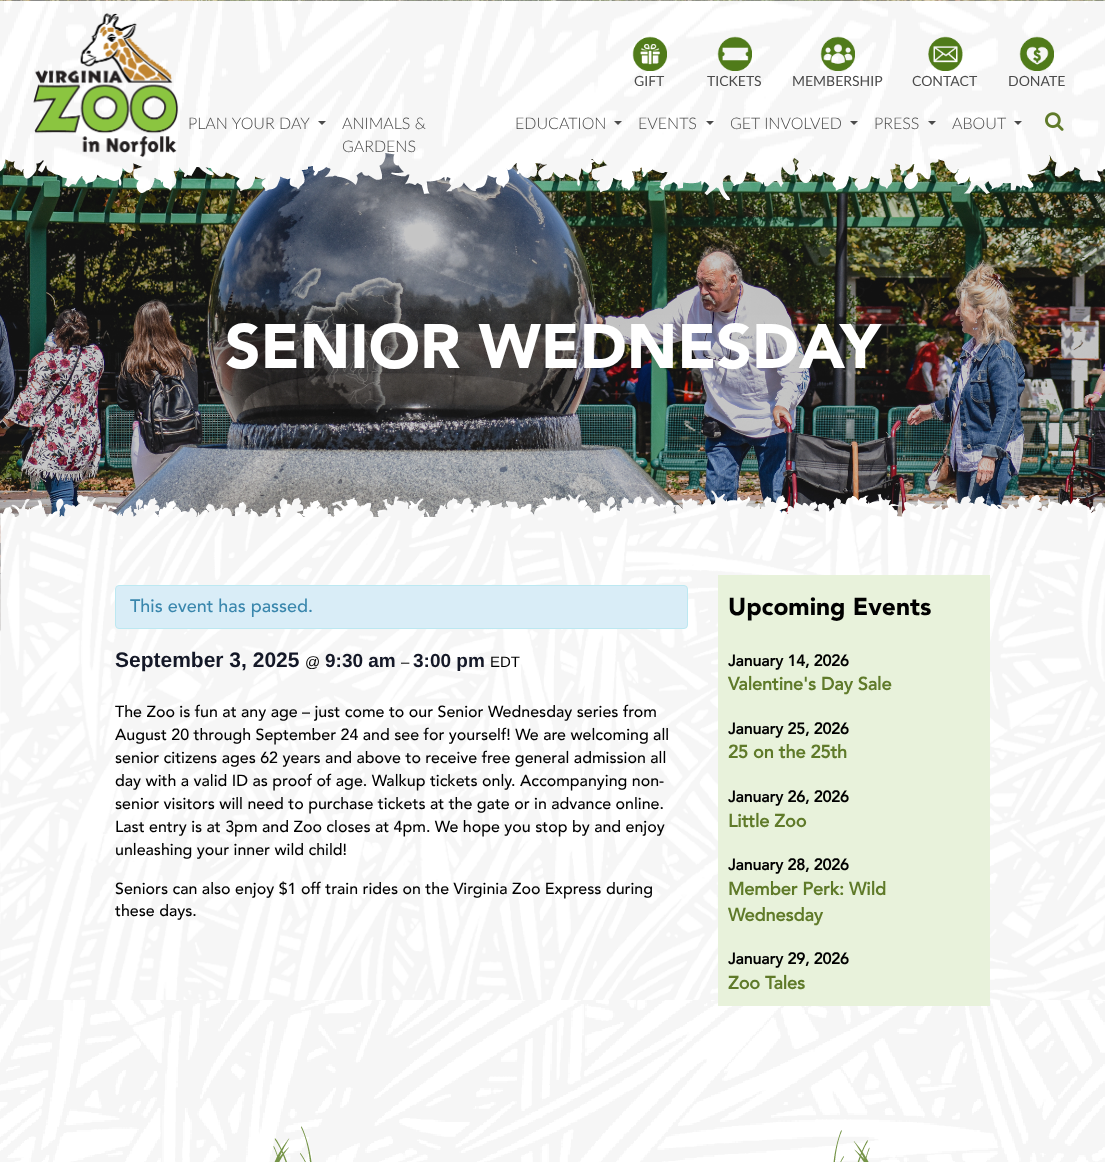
<svg xmlns="http://www.w3.org/2000/svg" width="1105" height="1162">
<rect width="100%" height="100%" fill="#fff"/>
<image x="0" y="655" width="1105" height="507" href="media/1.png"/>
<image x="0" y="0" width="1105" height="633" href="media/10.png"/>
<image x="0" y="0" width="1105" height="200" href="media/2.png"/>
<image x="632" y="36" width="35" height="35" href="media/3.png"/>
<text x="634" y="86" style="font-family:Lato;font-size:14px;fill:#4a4a4a">GIFT</text>
<image x="717" y="36" width="35" height="35" href="media/4.png"/>
<text x="707" y="86" style="font-family:Lato;font-size:14px;fill:#4a4a4a">TICKETS</text>
<image x="820" y="36" width="35" height="35" href="media/5.png"/>
<text x="792" y="86" style="font-family:Lato;font-size:14px;fill:#4a4a4a">MEMBERSHIP</text>
<image x="928" y="36" width="35" height="35" href="media/6.png"/>
<text x="912" y="86" style="font-family:Lato;font-size:14px;fill:#4a4a4a">CONTACT</text>
<image x="1019" y="36" width="35" height="35" href="media/7.png"/>
<text x="1008" y="86" style="font-family:Lato;font-size:14px;fill:#4a4a4a">DONATE</text>
<image x="33" y="13" width="146" height="145" href="media/8.png"/>
<text x="188" y="129" style="font-family:Lato;font-size:16px;font-weight:300;fill:#4a4a4a">PLAN YOUR DAY</text>
<path d="M318 121h8l-4 4z" fill="#4a4a4a"/>
<text x="342" y="129" style="font-family:Lato;font-size:16px;font-weight:300;fill:#4a4a4a">ANIMALS &amp;</text>
<text x="342" y="152" style="font-family:Lato;font-size:16px;font-weight:300;fill:#4a4a4a">GARDENS</text>
<text x="515" y="129" style="font-family:Lato;font-size:16px;font-weight:300;fill:#4a4a4a">EDUCATION</text>
<path d="M614 121h8l-4 4z" fill="#4a4a4a"/>
<text x="638" y="129" style="font-family:Lato;font-size:16px;font-weight:300;fill:#4a4a4a">EVENTS</text>
<path d="M706 121h8l-4 4z" fill="#4a4a4a"/>
<text x="730" y="129" style="font-family:Lato;font-size:16px;font-weight:300;fill:#4a4a4a">GET INVOLVED</text>
<path d="M850 121h8l-4 4z" fill="#4a4a4a"/>
<text x="874" y="129" style="font-family:Lato;font-size:16px;font-weight:300;fill:#4a4a4a">PRESS</text>
<path d="M928 121h8l-4 4z" fill="#4a4a4a"/>
<text x="952" y="129" style="font-family:Lato;font-size:16px;font-weight:300;fill:#4a4a4a">ABOUT</text>
<path d="M1014 121h8l-4 4z" fill="#4a4a4a"/>
<image x="1045" y="112" width="19" height="19" href="media/9.png"/>
<text x="225" y="368" style="font-family:Avenir;font-size:62px;font-weight:900;fill:#fff">SENIOR WEDNESDAY</text>
<image x="0" y="629" width="1" height="26" href="media/11.png"/>
<image x="0" y="490" width="1105" height="510" href="media/12.png"/>
<rect x="115.5" y="585.5" width="572" height="43" rx="3.5" fill="#d9edf7" stroke="#bce8f1"/>
<text x="130" y="612" style="font-family:Avenir;font-size:18px;font-weight:500;fill:#3a87ad">This event has passed.</text>
<text x="115" y="667" style="font-family:Liberation Sans;font-size:21px;font-weight:bold;fill:#141827">September 3, 2025</text>
<text x="305" y="667" style="font-family:Liberation Sans;font-size:15px;fill:#000">@</text>
<text x="325" y="667" style="font-family:Liberation Sans;font-size:19px;font-weight:bold;fill:#141827">9:30 am</text>
<text x="401" y="667" style="font-family:Liberation Sans;font-size:15px;fill:#000">–</text>
<text x="413" y="667" style="font-family:Liberation Sans;font-size:19px;font-weight:bold;fill:#141827">3:00 pm</text>
<text x="490" y="667" style="font-family:Liberation Sans;font-size:15px;fill:#000">EDT</text>
<text x="115" y="717" style="font-family:Avenir;font-size:16px;font-weight:500;fill:#000">The Zoo is fun at any age – just come to our Senior Wednesday series from</text>
<text x="115" y="740" style="font-family:Avenir;font-size:16px;font-weight:500;fill:#000">August 20 through September 24 and see for yourself! We are welcoming all</text>
<text x="115" y="763" style="font-family:Avenir;font-size:16px;font-weight:500;fill:#000">senior citizens ages 62 years and above to receive free general admission all</text>
<text x="115" y="786" style="font-family:Avenir;font-size:16px;font-weight:500;fill:#000">day with a valid ID as proof of age. Walkup tickets only. Accompanying non-</text>
<text x="115" y="809" style="font-family:Avenir;font-size:16px;font-weight:500;fill:#000">senior visitors will need to purchase tickets at the gate or in advance online.</text>
<text x="115" y="832" style="font-family:Avenir;font-size:16px;font-weight:500;fill:#000">Last entry is at 3pm and Zoo closes at 4pm. We hope you stop by and enjoy</text>
<text x="115" y="855" style="font-family:Avenir;font-size:16px;font-weight:500;fill:#000">unleashing your inner wild child!</text>
<text x="115" y="894" style="font-family:Avenir;font-size:16px;font-weight:500;fill:#000">Seniors can also enjoy $1 off train rides on the Virginia Zoo Express during</text>
<text x="115" y="916" style="font-family:Avenir;font-size:16px;font-weight:500;fill:#000">these days.</text>
<rect x="718" y="575" width="272" height="431" fill="#e8f2db"/>
<text x="728" y="615" style="font-family:Avenir;font-size:24.5px;font-weight:900;fill:#000">Upcoming Events</text>
<text x="728" y="666" style="font-family:Avenir;font-size:15.75px;font-weight:bold;fill:#000">January 14, 2026</text>
<text x="728" y="690" style="font-family:Avenir;font-size:18px;font-weight:bold;fill:#5f7a29">Valentine's Day Sale</text>
<text x="728" y="734" style="font-family:Avenir;font-size:15.75px;font-weight:bold;fill:#000">January 25, 2026</text>
<text x="728" y="758" style="font-family:Avenir;font-size:18px;font-weight:bold;fill:#5f7a29">25 on the 25th</text>
<text x="728" y="802" style="font-family:Avenir;font-size:15.75px;font-weight:bold;fill:#000">January 26, 2026</text>
<text x="728" y="827" style="font-family:Avenir;font-size:18px;font-weight:bold;fill:#5f7a29">Little Zoo</text>
<text x="728" y="870" style="font-family:Avenir;font-size:15.75px;font-weight:bold;fill:#000">January 28, 2026</text>
<text x="728" y="895" style="font-family:Avenir;font-size:18px;font-weight:bold;fill:#5f7a29">Member Perk: Wild</text>
<text x="728" y="921" style="font-family:Avenir;font-size:18px;font-weight:bold;fill:#5f7a29">Wednesday</text>
<text x="728" y="964" style="font-family:Avenir;font-size:15.75px;font-weight:bold;fill:#000">January 29, 2026</text>
<text x="728" y="989" style="font-family:Avenir;font-size:18px;font-weight:bold;fill:#5f7a29">Zoo Tales</text>
<image x="273" y="1126" width="597" height="36" href="media/13.png"/>
</svg>
